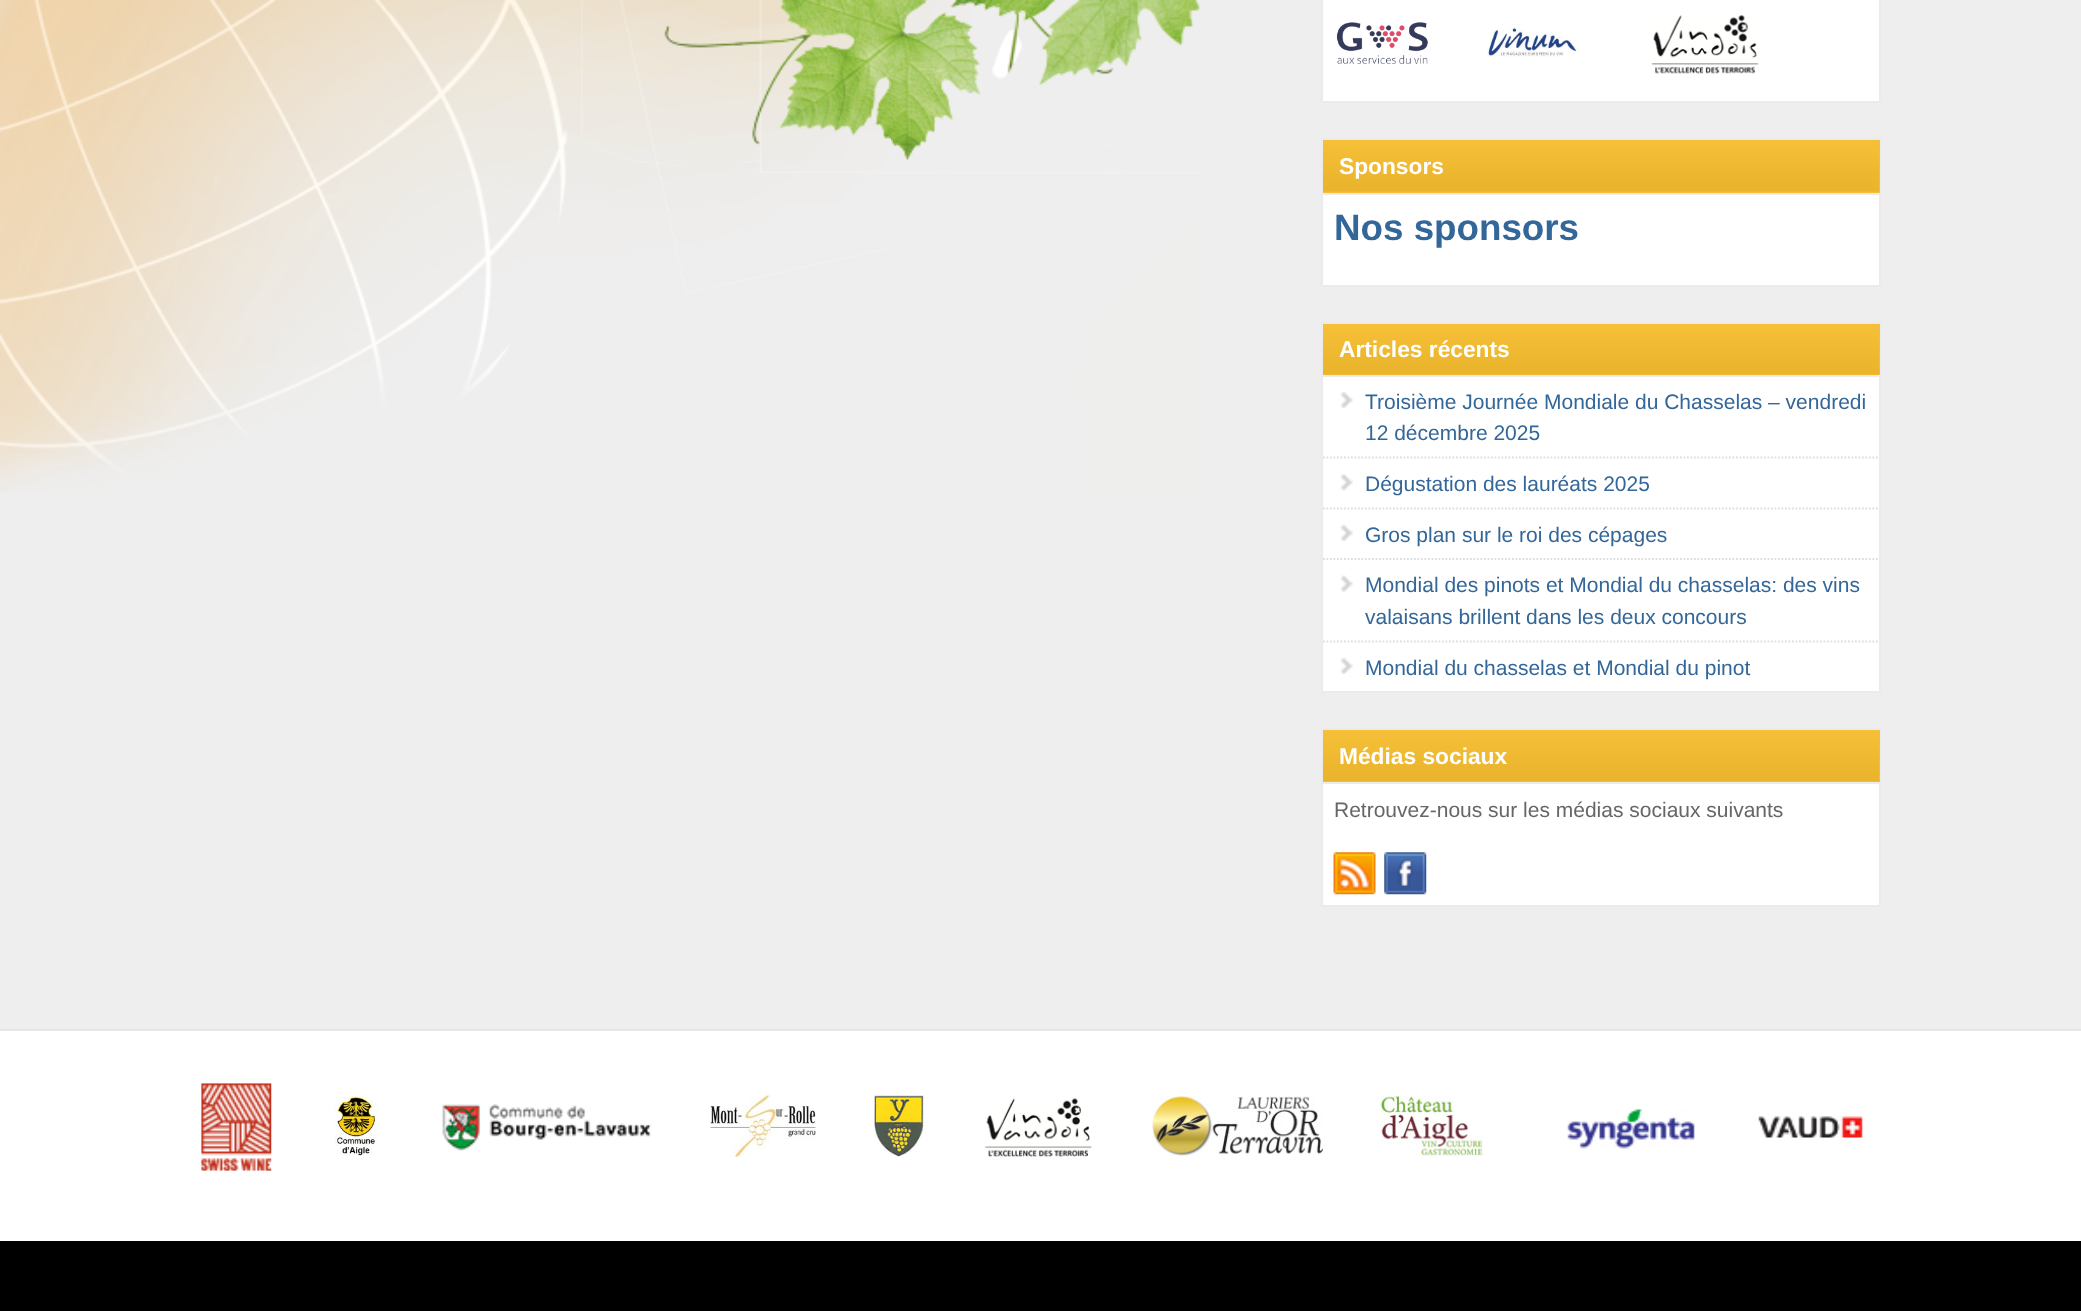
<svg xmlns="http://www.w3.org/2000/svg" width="2081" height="1311">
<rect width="100%" height="100%" fill="#eee"/>
<image x="0" y="0" width="1201" height="492" href="media/1.png"/>
<rect x="1322" y="-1" width="558" height="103" fill="#fff" stroke="#ebebeb" stroke-width="2"/>
<image x="1336" y="22" width="92" height="42" href="media/2.png"/>
<image x="1487" y="26" width="92" height="31" href="media/3.png"/>
<image x="1651" y="15" width="108" height="59" href="media/4.png"/>
<rect x="1323" y="195" width="556" height="90" fill="#fff"/>
<rect x="1322" y="139" width="558" height="147" fill="none" stroke="#ebebeb" stroke-width="2"/>
<rect x="1323" y="140" width="557" height="53" fill="#f8be30"/>
<image x="1323" y="140" width="556" height="53" href="media/5.png"/>
<rect x="1323" y="193" width="557" height="2" fill="#ebebeb"/>
<text x="1339" y="174" style="font-family:Liberation Sans;font-size:22.75px;font-weight:bold;fill:#fff">Sponsors</text>
<text x="1334" y="240" style="font-family:Liberation Sans;font-size:36.75px;font-weight:bold;fill:#369">Nos sponsors</text>
<rect x="1323" y="377" width="556" height="314" fill="#fff"/>
<rect x="1322" y="323" width="558" height="369" fill="none" stroke="#ebebeb" stroke-width="2"/>
<rect x="1323" y="324" width="557" height="51" fill="#f8be30"/>
<image x="1323" y="324" width="556" height="51" href="media/6.png"/>
<rect x="1323" y="375" width="557" height="2" fill="#ebebeb"/>
<text x="1339" y="357" style="font-family:Liberation Sans;font-size:22.75px;font-weight:bold;fill:#fff">Articles récents</text>
<image x="1340" y="391" width="13" height="17" href="media/7.png"/>
<path d="M1323 457.5h556.5" fill="none" stroke="#ddd" stroke-width="1.8" stroke-dasharray="1.75 1.75"/>
<text x="1365" y="409" style="font-family:Liberation Sans;font-size:21px;fill:#369">Troisième Journée Mondiale du Chasselas – vendredi</text>
<text x="1365" y="440" style="font-family:Liberation Sans;font-size:21px;fill:#369">12 décembre 2025</text>
<image x="1340" y="474" width="13" height="17" href="media/8.png"/>
<path d="M1323 508.5h556.5" fill="none" stroke="#ddd" stroke-width="1.8" stroke-dasharray="1.75 1.75"/>
<text x="1365" y="491" style="font-family:Liberation Sans;font-size:21px;fill:#369">Dégustation des lauréats 2025</text>
<image x="1340" y="524" width="13" height="17" href="media/7.png"/>
<path d="M1323 559h556.5" fill="none" stroke="#ddd" stroke-width="1.8" stroke-dasharray="1.75 1.75"/>
<text x="1365" y="542" style="font-family:Liberation Sans;font-size:21px;fill:#369">Gros plan sur le roi des cépages</text>
<image x="1340" y="575" width="13" height="17" href="media/9.png"/>
<path d="M1323 641.5h556.5" fill="none" stroke="#ddd" stroke-width="1.8" stroke-dasharray="1.75 1.75"/>
<text x="1365" y="592" style="font-family:Liberation Sans;font-size:21px;fill:#369">Mondial des pinots et Mondial du chasselas: des vins</text>
<text x="1365" y="624" style="font-family:Liberation Sans;font-size:21px;fill:#369">valaisans brillent dans les deux concours</text>
<image x="1340" y="657" width="13" height="17" href="media/7.png"/>
<text x="1365" y="675" style="font-family:Liberation Sans;font-size:21px;fill:#369">Mondial du chasselas et Mondial du pinot</text>
<rect x="1323" y="784" width="556" height="121" fill="#fff"/>
<rect x="1322" y="729" width="558" height="177" fill="none" stroke="#ebebeb" stroke-width="2"/>
<rect x="1323" y="730" width="557" height="52" fill="#f8be30"/>
<image x="1323" y="730" width="556" height="52" href="media/10.png"/>
<rect x="1323" y="782" width="557" height="2" fill="#ebebeb"/>
<text x="1339" y="764" style="font-family:Liberation Sans;font-size:22.75px;font-weight:bold;fill:#fff">Médias sociaux</text>
<text x="1334" y="817" style="font-family:Liberation Sans;font-size:21px;fill:#666">Retrouvez-nous sur les médias sociaux suivants</text>
<image x="1333" y="852" width="43" height="43" href="media/11.png"/>
<image x="1384" y="852" width="43" height="43" href="media/12.png"/>
<rect y="1031" width="2081" height="210" fill="#fff"/>
<rect y="1029" width="2081" height="2" fill="#e5e5e5"/>
<image x="201" y="1083" width="71" height="88" href="media/13.png"/>
<image x="334" y="1095" width="44" height="61" href="media/14.png"/>
<image x="442" y="1104" width="210" height="47" href="media/15.png"/>
<image x="710" y="1095" width="106" height="62" href="media/16.png"/>
<image x="873" y="1095" width="51" height="62" href="media/17.png"/>
<image x="984" y="1098" width="108" height="59" href="media/18.png"/>
<image x="1152" y="1096" width="171" height="60" href="media/19.png"/>
<image x="1380" y="1095" width="104" height="62" href="media/20.png"/>
<image x="1567" y="1108" width="128" height="41" href="media/21.png"/>
<image x="1758" y="1116" width="105" height="22" href="media/22.png"/>
<rect y="1241" width="2081" height="70" fill="#000"/>
</svg>
